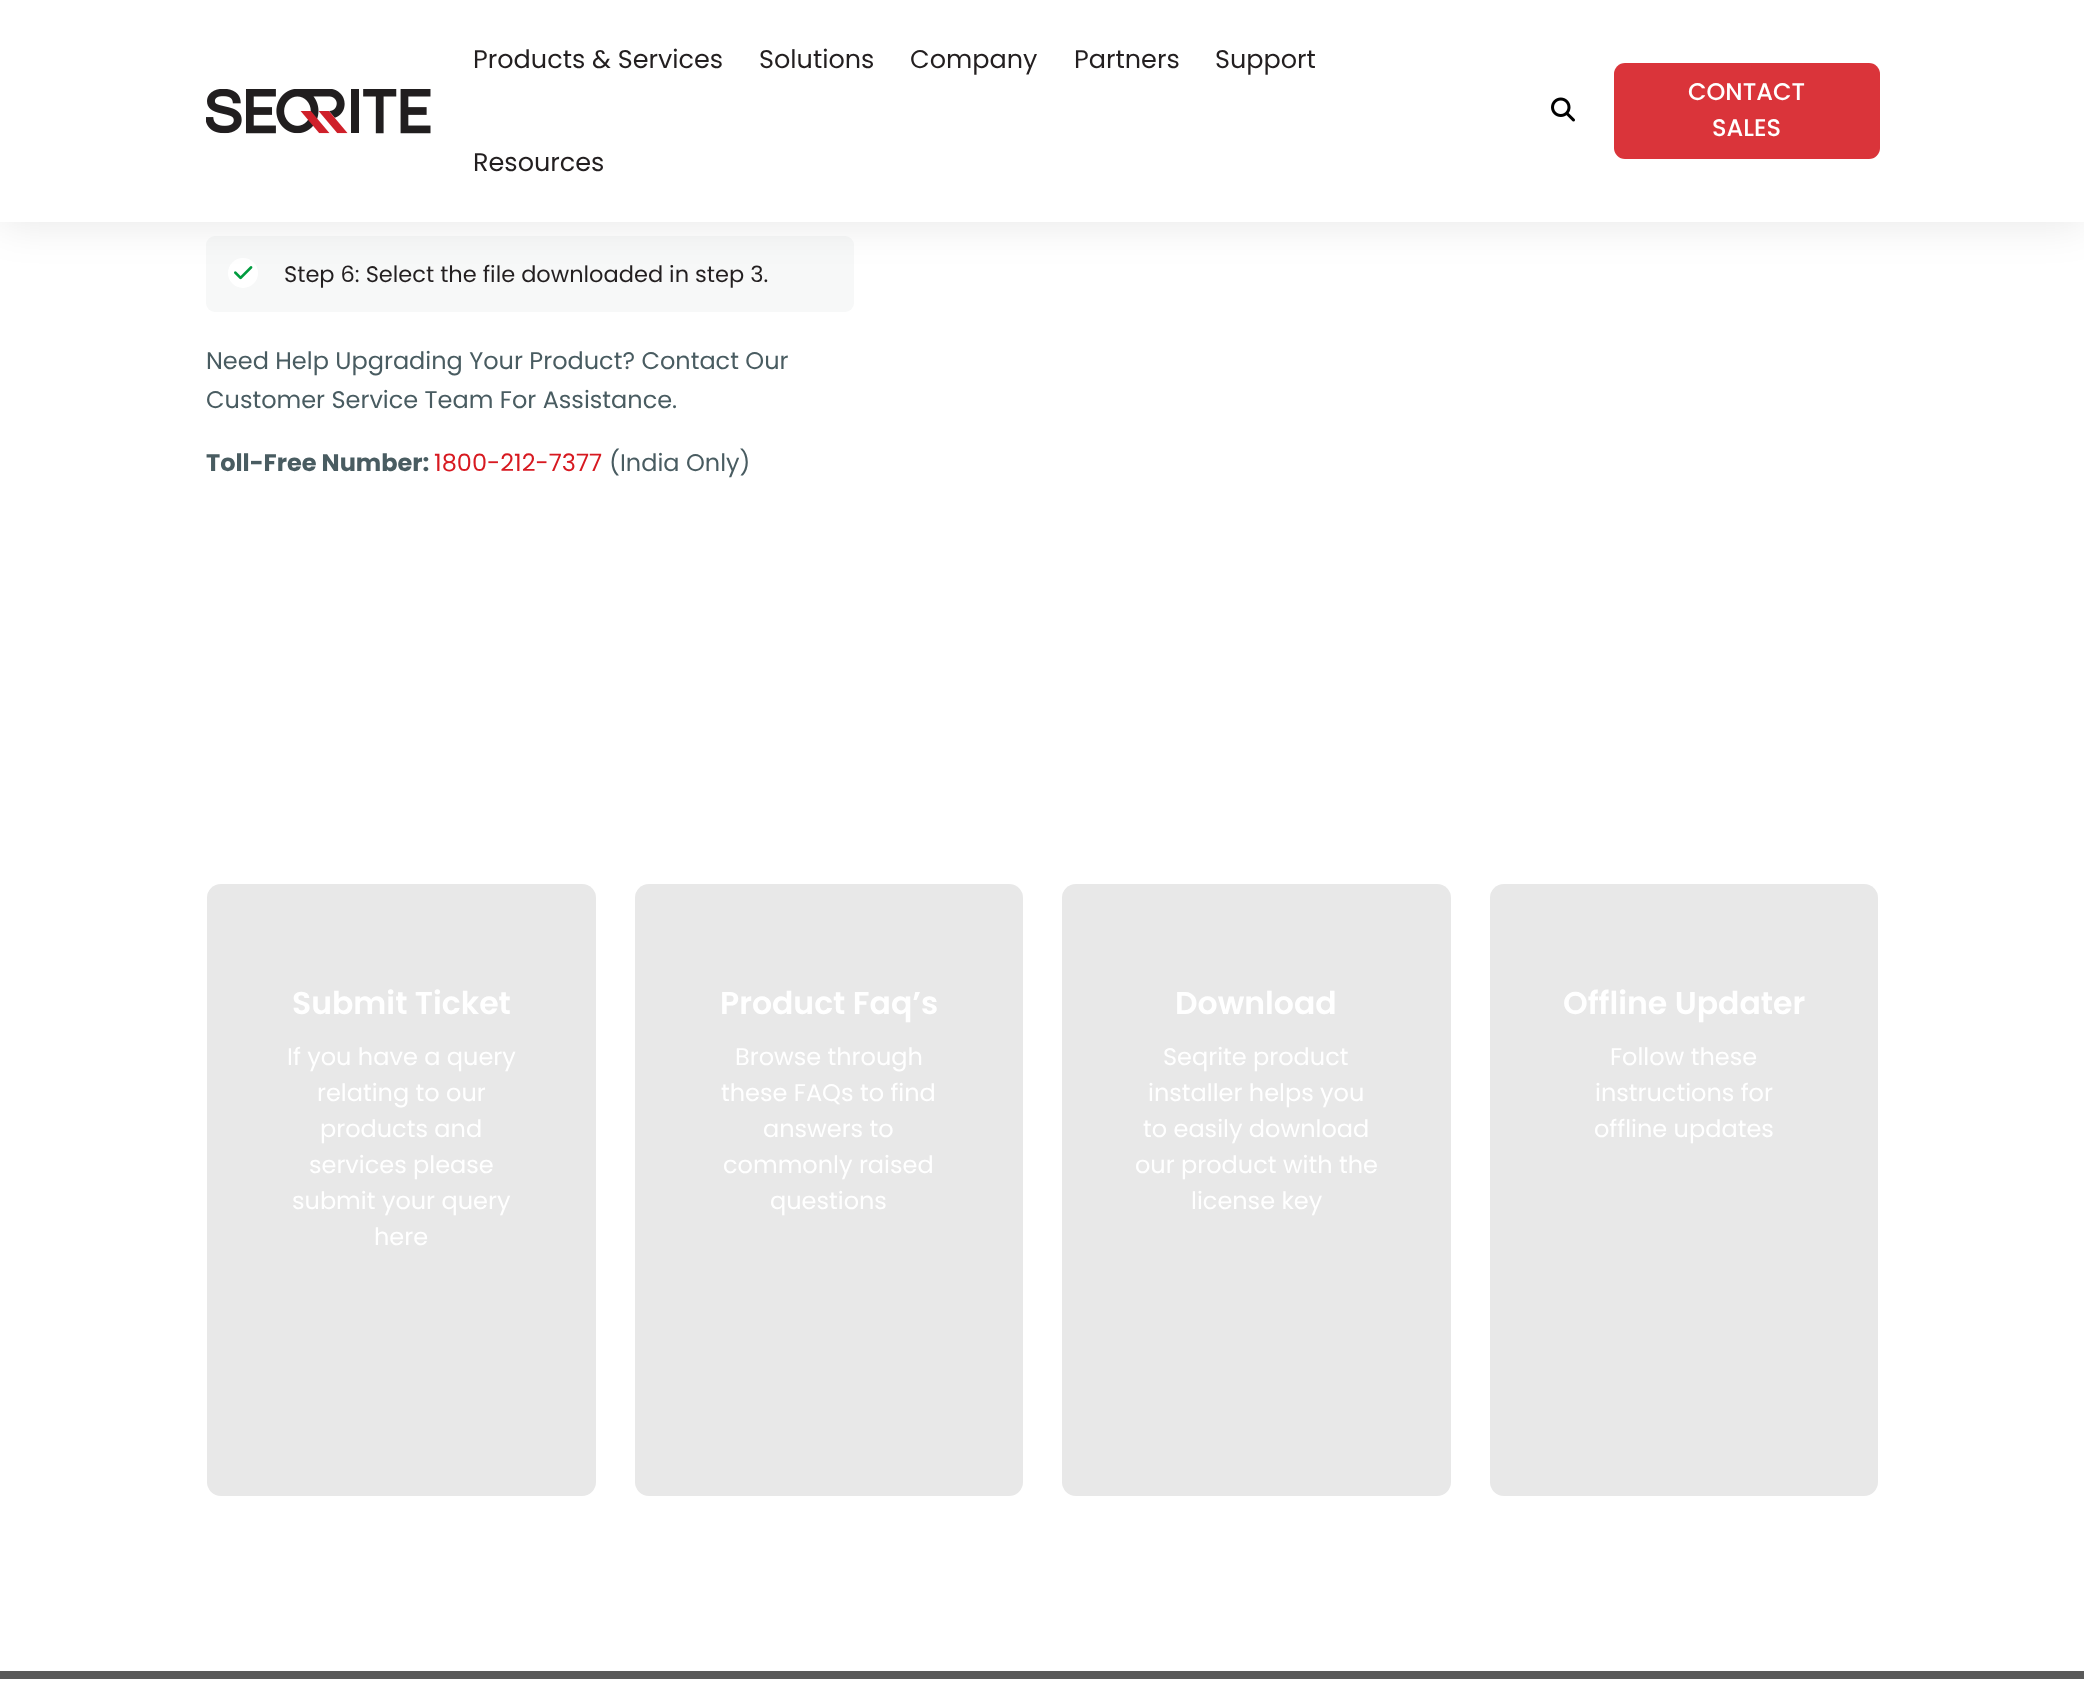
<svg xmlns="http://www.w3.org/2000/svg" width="2084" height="1704">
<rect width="100%" height="100%" fill="#fff"/>
<rect x="206" y="236" width="648" height="76" rx="9" fill="#f7f8f8"/>
<circle cx="243" cy="273" r="15" fill="#fff"/>
<image x="234" y="266" width="19" height="14" href="media/3.png"/>
<rect y="3" width="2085" height="222" fill="#00000017" filter="blur(21px)"/>
<rect width="2084" height="222" fill="#fff"/>
<image x="206" y="89" width="225" height="45" href="media/1.png"/>
<text x="473" y="68" style="font-family:Poppins;font-size:25.5px;fill:#231f20">Products &amp; Services</text>
<text x="759" y="68" style="font-family:Poppins;font-size:25.5px;fill:#231f20">Solutions</text>
<text x="910" y="68" style="font-family:Poppins;font-size:25.5px;fill:#231f20">Company</text>
<text x="1074" y="68" style="font-family:Poppins;font-size:25.5px;fill:#231f20">Partners</text>
<text x="1215" y="68" style="font-family:Poppins;font-size:25.5px;fill:#231f20">Support</text>
<text x="473" y="171" style="font-family:Poppins;font-size:25.5px;fill:#231f20">Resources</text>
<image x="1551" y="97" width="24" height="25" href="media/2.png"/>
<rect x="1614" y="63" width="266" height="96" rx="11" fill="#da343a"/>
<text x="1688" y="100" style="font-family:Poppins;font-size:24px;font-weight:500;fill:#fff">CONTACT</text>
<text x="1712" y="136" style="font-family:Poppins;font-size:24px;font-weight:500;fill:#fff">SALES</text>
<text x="284" y="282" style="font-family:Poppins;font-size:22.5px;fill:#231f20">Step 6: Select the file downloaded in step 3.</text>
<text x="206" y="369" style="font-family:Poppins;font-size:24px;fill:#495c61">Need Help Upgrading Your Product? Contact Our</text>
<text x="206" y="408" style="font-family:Poppins;font-size:24px;fill:#495c61">Customer Service Team For Assistance.</text>
<text x="206" y="471" style="font-family:Poppins;font-size:24px;font-weight:bold;fill:#495c61">Toll-Free Number:</text>
<text x="434" y="471" style="font-family:Poppins;font-size:24px;fill:#d71920">1800-212-7377</text>
<text x="609" y="471" style="font-family:Poppins;font-size:24px;fill:#495c61">(India Only)</text>
<rect x="207" y="884" width="389" height="612" rx="14" fill="#e8e8e8"/>
<text x="292" y="1014" style="font-family:Poppins;font-size:31.5px;font-weight:600;fill:#fff">Submit Ticket</text>
<text x="287" y="1065" style="font-family:Poppins;font-size:24px;fill:#fff">If you have a query</text>
<text x="317" y="1101" style="font-family:Poppins;font-size:24px;fill:#fff">relating to our</text>
<text x="320" y="1137" style="font-family:Poppins;font-size:24px;fill:#fff">products and</text>
<text x="309" y="1173" style="font-family:Poppins;font-size:24px;fill:#fff">services please</text>
<text x="292" y="1209" style="font-family:Poppins;font-size:24px;fill:#fff">submit your query</text>
<text x="374" y="1245" style="font-family:Poppins;font-size:24px;fill:#fff">here</text>
<rect x="635" y="884" width="388" height="612" rx="14" fill="#e8e8e8"/>
<text x="720" y="1014" style="font-family:Poppins;font-size:31.5px;font-weight:600;fill:#fff">Product Faq’s</text>
<text x="735" y="1065" style="font-family:Poppins;font-size:24px;fill:#fff">Browse through</text>
<text x="721" y="1101" style="font-family:Poppins;font-size:24px;fill:#fff">these FAQs to find</text>
<text x="763" y="1137" style="font-family:Poppins;font-size:24px;fill:#fff">answers to</text>
<text x="723" y="1173" style="font-family:Poppins;font-size:24px;fill:#fff">commonly raised</text>
<text x="770" y="1209" style="font-family:Poppins;font-size:24px;fill:#fff">questions</text>
<rect x="1062" y="884" width="389" height="612" rx="14" fill="#e8e8e8"/>
<text x="1175" y="1014" style="font-family:Poppins;font-size:31.5px;font-weight:600;fill:#fff">Download</text>
<text x="1163" y="1065" style="font-family:Poppins;font-size:24px;fill:#fff">Seqrite product</text>
<text x="1148" y="1101" style="font-family:Poppins;font-size:24px;fill:#fff">installer helps you</text>
<text x="1143" y="1137" style="font-family:Poppins;font-size:24px;fill:#fff">to easily download</text>
<text x="1135" y="1173" style="font-family:Poppins;font-size:24px;fill:#fff">our product with the</text>
<text x="1191" y="1209" style="font-family:Poppins;font-size:24px;fill:#fff">license key</text>
<rect x="1490" y="884" width="388" height="612" rx="14" fill="#e8e8e8"/>
<text x="1563" y="1014" style="font-family:Poppins;font-size:31.5px;font-weight:600;fill:#fff">Offline Updater</text>
<text x="1610" y="1065" style="font-family:Poppins;font-size:24px;fill:#fff">Follow these</text>
<text x="1595" y="1101" style="font-family:Poppins;font-size:24px;fill:#fff">instructions for</text>
<text x="1594" y="1137" style="font-family:Poppins;font-size:24px;fill:#fff">offline updates</text>
<rect y="1671" width="2084" height="8" fill="#5a5a5a"/>
</svg>
